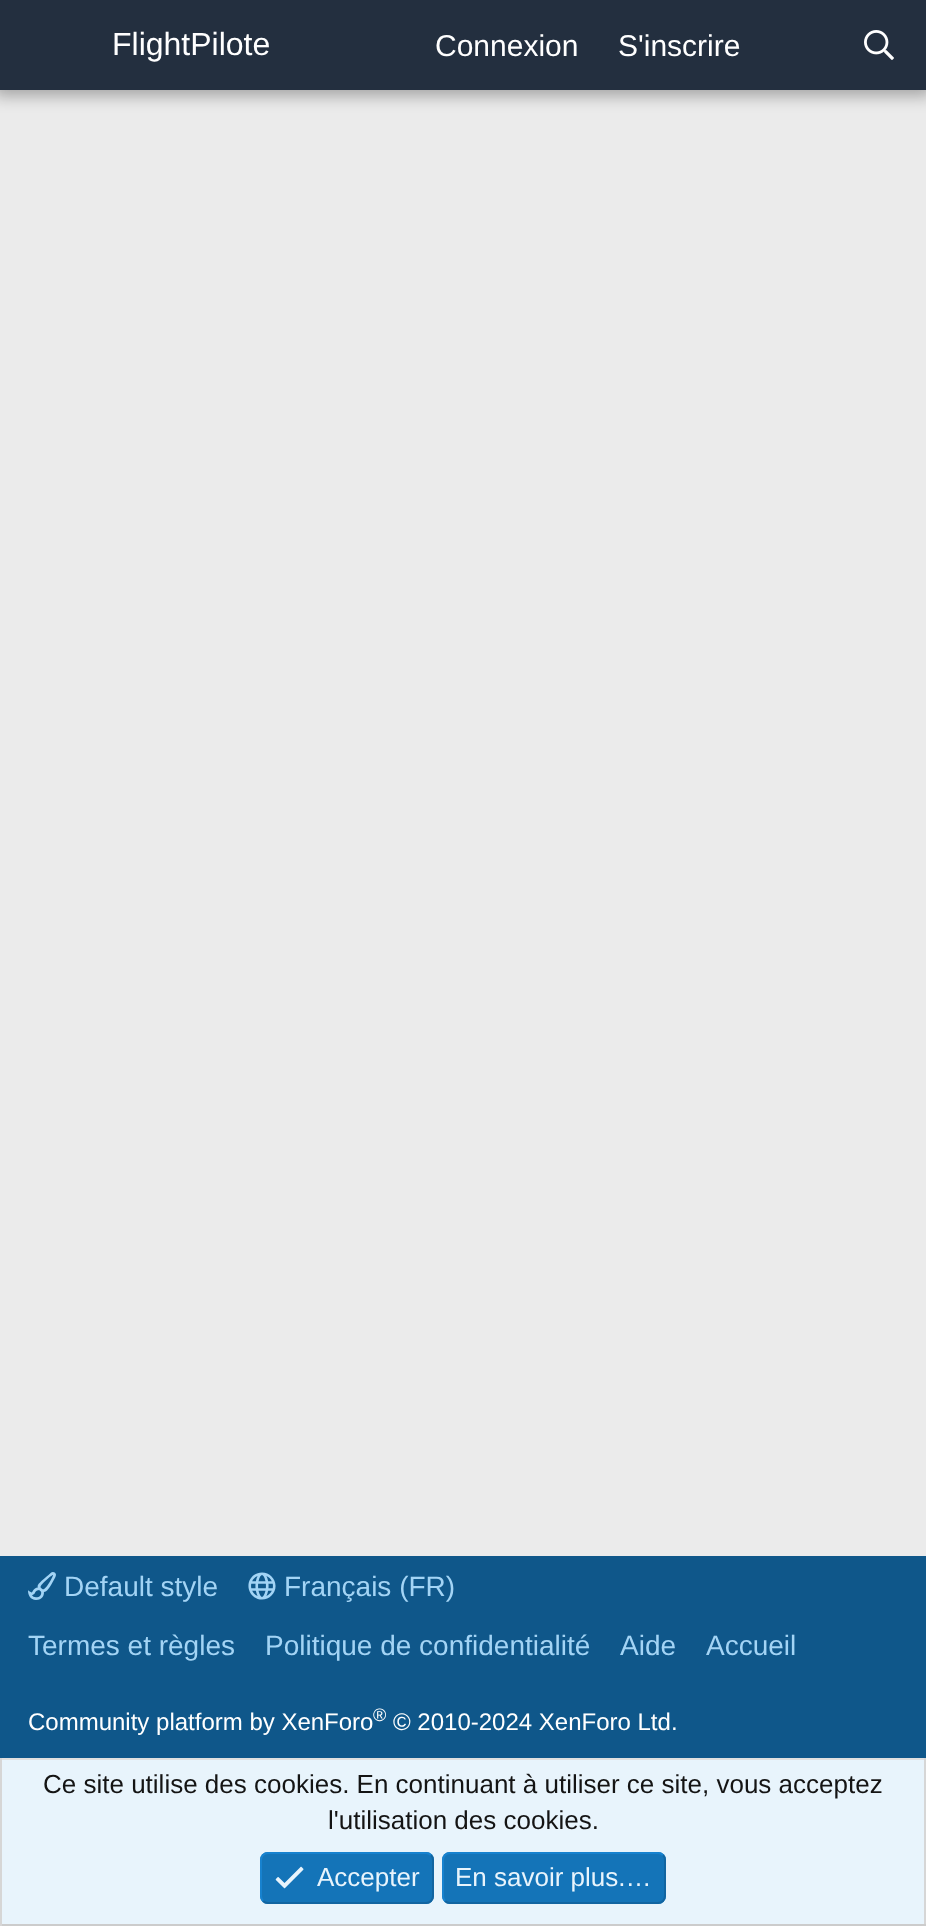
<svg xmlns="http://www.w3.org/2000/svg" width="926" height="1926">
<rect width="100%" height="100%" fill="#ebebeb"/>
<rect x="-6" y="-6" width="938" height="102" fill="#0000004d" filter="blur(8px)"/>
<rect width="926" height="90" fill="#232f3f"/>
<text x="112" y="55" style="font-family:Liberation Sans;font-size:32px;fill:#fff">FlightPilote</text>
<text x="435" y="56" style="font-family:Liberation Sans;font-size:30px;fill:#fff">Connexion</text>
<text x="618" y="56" style="font-family:Liberation Sans;font-size:30px;fill:#fff">S'inscrire</text>
<image x="864" y="30" width="30" height="30" href="media/1.png"/>
<rect y="1556" width="926" height="202" fill="#0f578a"/>
<image x="28" y="1572" width="28" height="28" href="media/2.png"/>
<text x="64" y="1596" style="font-family:Liberation Sans;font-size:28px;fill:#a3d4f5">Default style</text>
<image x="248" y="1572" width="28" height="28" href="media/3.png"/>
<text x="284" y="1596" style="font-family:Liberation Sans;font-size:28px;fill:#a3d4f5">Français (FR)</text>
<text x="28" y="1655" style="font-family:Liberation Sans;font-size:28px;fill:#a3d4f5">Termes et règles</text>
<text x="265" y="1655" style="font-family:Liberation Sans;font-size:28px;fill:#a3d4f5">Politique de confidentialité</text>
<text x="620" y="1655" style="font-family:Liberation Sans;font-size:28px;fill:#a3d4f5">Aide</text>
<text x="706" y="1655" style="font-family:Liberation Sans;font-size:28px;fill:#a3d4f5">Accueil</text>
<text x="28" y="1730" style="font-family:Liberation Sans;font-size:24px;fill:#fff">Community platform by XenForo</text>
<text x="373" y="1721" style="font-family:Liberation Sans;font-size:18px;fill:#fff">®</text>
<text x="393" y="1730" style="font-family:Liberation Sans;font-size:24px;fill:#fff">© 2010-2024 XenForo Ltd.</text>
<rect x="2" y="1760" width="922" height="164" fill="#e8f4fc"/>
<rect y="1758" width="926" height="2" fill="#e0e0e0"/>
<rect x="924" y="1758" width="2" height="168" fill="#d6d6d6"/>
<rect y="1924" width="926" height="2" fill="#ccc"/>
<rect y="1758" width="2" height="168" fill="#d6d6d6"/>
<text x="43" y="1793" style="font-family:Liberation Sans;font-size:26px;fill:#141414">Ce site utilise des cookies. En continuant à utiliser ce site, vous acceptez</text>
<text x="328" y="1829" style="font-family:Liberation Sans;font-size:26px;fill:#141414">l'utilisation des cookies.</text>
<rect x="260" y="1852" width="174" height="52" rx="8" fill="#1474b8"/>
<path d="M431 1855c1.5 1.5 2 3 2 5v36c0 2-.5 3.5-2 5c-1.5 1.5-3 2-5 2h-158c-2 0-3.5-.5-5-2" fill="none" stroke="#1265a1" stroke-width="2"/>
<path d="M263 1901c-1.5-1.5-2-3-2-5v-36c0-2 .5-3.5 2-5c1.5-1.5 3-2 5-2h158c2 0 3.5 .5 5 2" fill="none" stroke="#1782cf" stroke-width="2"/>
<image x="275" y="1866" width="29" height="23" href="media/4.png"/>
<text x="317" y="1886" style="font-family:Liberation Sans;font-size:26px;fill:#e8f4fc">Accepter</text>
<rect x="442" y="1852" width="224" height="52" rx="8" fill="#1474b8"/>
<path d="M663 1855c1.5 1.5 2 3 2 5v36c0 2-.5 3.5-2 5c-1.5 1.5-3 2-5 2h-208c-2 0-3.5-.5-5-2" fill="none" stroke="#1265a1" stroke-width="2"/>
<path d="M445 1901c-1.5-1.5-2-3-2-5v-36c0-2 .5-3.5 2-5c1.5-1.5 3-2 5-2h208c2 0 3.5 .5 5 2" fill="none" stroke="#1782cf" stroke-width="2"/>
<text x="455" y="1886" style="font-family:Liberation Sans;font-size:26px;fill:#e8f4fc">En savoir plus.…</text>
</svg>
